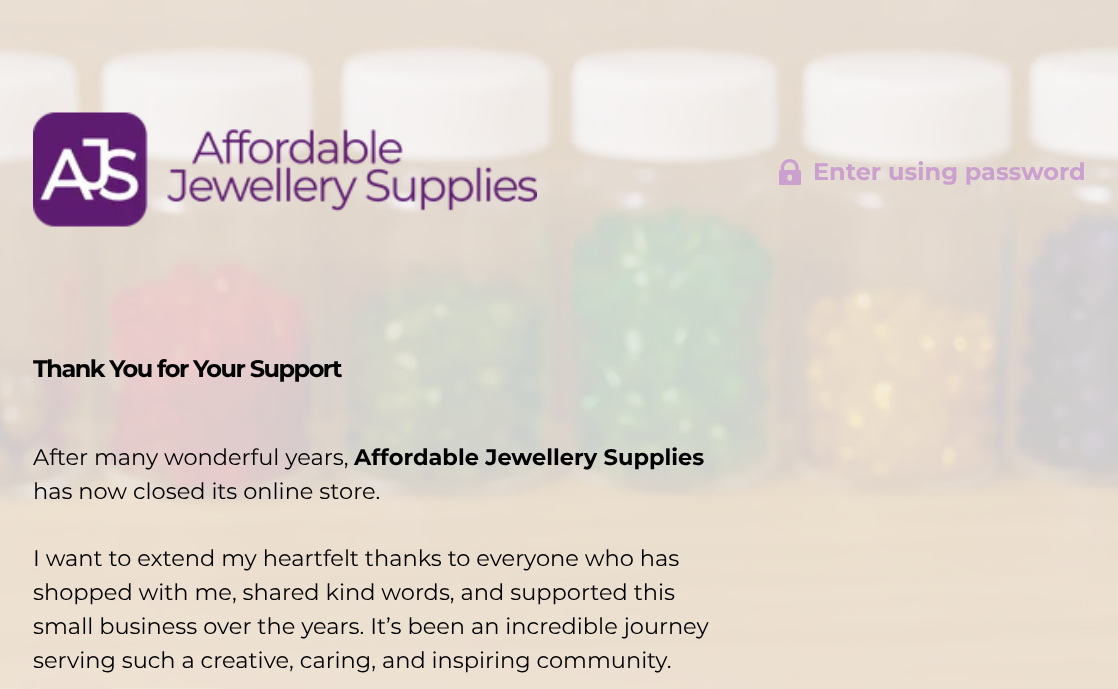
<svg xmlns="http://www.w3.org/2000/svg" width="1118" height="689">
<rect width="100%" height="100%" fill="#fff"/>
<image x="0" y="0" width="1118" height="689" href="media/1.png"/>
<image x="33" y="112" width="504" height="115" href="media/2.png"/>
<image x="779" y="159" width="22" height="26" href="media/3.png"/>
<text x="813" y="180" style="font-family:Montserrat;font-size:24px;font-weight:bold;fill:#cba0cf">Enter using password</text>
<text x="33" y="377" style="font-family:Montserrat;font-size:24px;font-weight:bold;letter-spacing:-1.5px;fill:#000">Thank You for Your Support</text>
<text x="33" y="465" style="font-family:Montserrat;font-size:22.5px;fill:#000">After many wonderful years,</text>
<text x="354" y="465" style="font-family:Montserrat;font-size:22.5px;font-weight:bold;fill:#000">Affordable Jewellery Supplies</text>
<text x="33" y="499" style="font-family:Montserrat;font-size:22.5px;fill:#000">has now closed its online store.</text>
<text x="33" y="566" style="font-family:Montserrat;font-size:22.5px;fill:#000">I want to extend my heartfelt thanks to everyone who has</text>
<text x="33" y="600" style="font-family:Montserrat;font-size:22.5px;fill:#000">shopped with me, shared kind words, and supported this</text>
<text x="33" y="634" style="font-family:Montserrat;font-size:22.5px;fill:#000">small business over the years. It’s been an incredible journey</text>
<text x="33" y="668" style="font-family:Montserrat;font-size:22.5px;fill:#000">serving such a creative, caring, and inspiring community.</text>
</svg>
